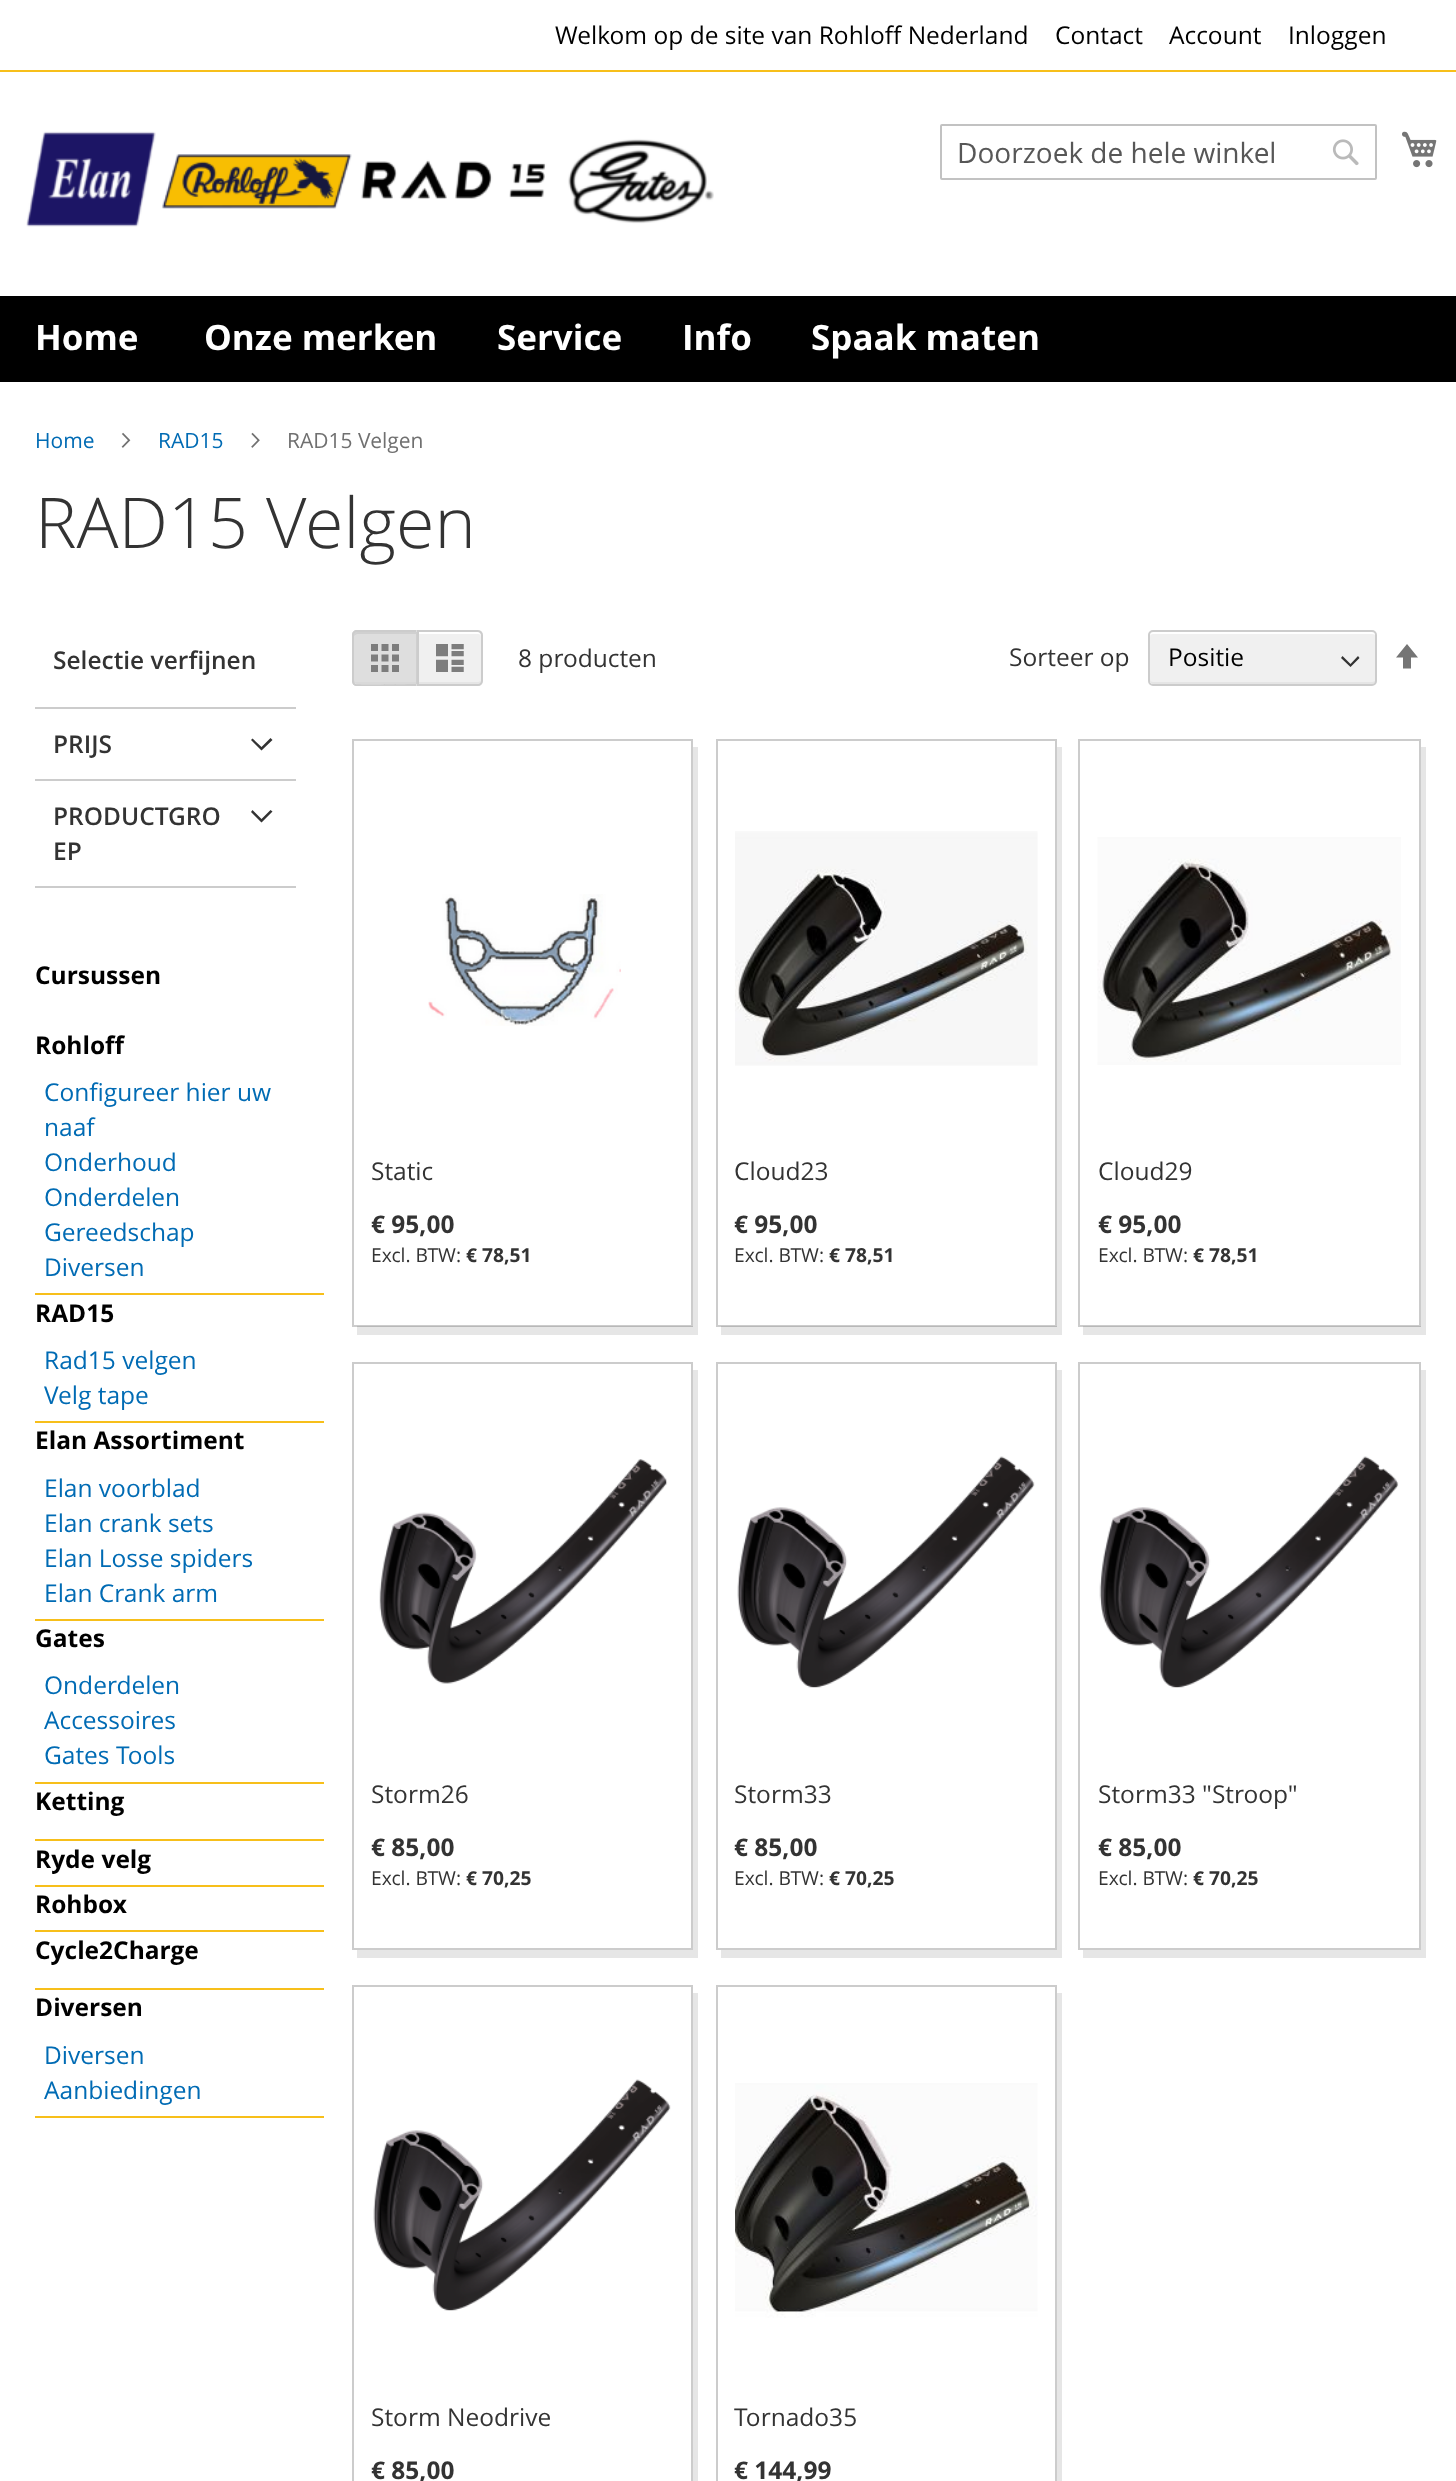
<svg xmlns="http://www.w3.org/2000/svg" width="1456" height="2481">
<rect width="100%" height="100%" fill="#fff"/>
<rect y="70" width="1456" height="2" fill="#f7bf1a"/>
<text x="555" y="44" style="font-family:Open Sans;font-size:24.5px;fill:#000">Welkom op de site van Rohloff Nederland</text>
<text x="1055" y="44" style="font-family:Open Sans;font-size:24.5px;fill:#000">Contact</text>
<text x="1169" y="44" style="font-family:Open Sans;font-size:24.5px;fill:#000">Account</text>
<text x="1288" y="44" style="font-family:Open Sans;font-size:24.5px;fill:#000">Inloggen</text>
<image x="26" y="131" width="688" height="96" href="media/1.png"/>
<rect x="941" y="125" width="435" height="54" rx="1" fill="none" stroke="#c2c2c2" stroke-width="2"/>
<text x="957" y="163" style="font-family:Open Sans;font-size:28px;fill:#575757">Doorzoek de hele winkel</text>
<image x="1332" y="139" width="27" height="27" href="media/2.png"/>
<image x="1402" y="131" width="35" height="37" href="media/3.png"/>
<rect y="296" width="1456" height="86" fill="#000"/>
<text x="35" y="350" style="font-family:Open Sans;font-size:35px;font-weight:bold;fill:#fff">Home</text>
<text x="204" y="350" style="font-family:Open Sans;font-size:35px;font-weight:bold;fill:#fff">Onze merken</text>
<text x="497" y="350" style="font-family:Open Sans;font-size:35px;font-weight:bold;fill:#fff">Service</text>
<text x="682" y="350" style="font-family:Open Sans;font-size:35px;font-weight:bold;fill:#fff">Info</text>
<text x="811" y="350" style="font-family:Open Sans;font-size:35px;font-weight:bold;fill:#fff">Spaak maten</text>
<text x="35" y="448" style="font-family:Open Sans;font-size:21px;fill:#006bb4">Home</text>
<image x="121" y="432" width="10" height="16" href="media/4.png"/>
<text x="158" y="448" style="font-family:Open Sans;font-size:21px;fill:#006bb4">RAD15</text>
<image x="251" y="432" width="9" height="16" href="media/5.png"/>
<text x="287" y="448" style="font-family:Open Sans;font-size:21px;fill:#707070">RAD15 Velgen</text>
<text x="35" y="548" style="font-family:Open Sans;font-size:70px;font-weight:300;fill:#333">RAD15 Velgen</text>
<rect x="35" y="707" width="261" height="2" fill="#ccc"/>
<text x="53" y="669" style="font-family:Open Sans;font-size:24.5px;font-weight:600;fill:#333">Selectie verfijnen</text>
<rect x="35" y="779" width="261" height="2" fill="#ccc"/>
<text x="53" y="753" style="font-family:Open Sans;font-size:24.5px;font-weight:600;fill:#333">PRIJS</text>
<path d="M261.5 747l-9-8.5l-1.5 1.5l10.5 10.5l11-10.5l-2-2z" fill="#333"/>
<rect x="35" y="886" width="261" height="2" fill="#ccc"/>
<text x="53" y="825" style="font-family:Open Sans;font-size:24.5px;font-weight:600;fill:#333">PRODUCTGRO</text>
<path d="M261.5 819l-9-9l-1.5 2l10.5 10.5l11-11l-2-1.5z" fill="#333"/>
<text x="53" y="860" style="font-family:Open Sans;font-size:24.5px;font-weight:600;fill:#333">EP</text>
<path d="M357 630h60v56h-60c-3 0-5-2-5-5v-46c0-3 2-5 5-5z" fill="#dedede"/>
<path d="M354 680c0 2 2 4 4 4h59v-52h-1v50h-49h-12z" fill="#d9d9d9"/>
<path d="M357 634h59v50h1v-52h-59c-2 0-4 2-4 4l1-1z" fill="#cccccccc"/>
<path d="M357 630h59v56h-59c-3 0-5-2-5-5v-46c0-3 2-5 5-5zm0 2h59v52c-6 0-59 1-61 0l-1-3v-46l1-2z" fill="#ccc" fill-rule="evenodd"/>
<image x="371" y="644" width="28" height="28" href="media/6.png"/>
<path d="M417 630h61c3 0 5 2 5 5v46c0 3-2 5-5 5h-61z" fill="#f0f0f0"/>
<path d="M418 682v2h59c2 0 4-2 4-4v-1c0 2-1 3-3 3z" fill="#e5e5e5"/>
<path d="M418 634h60c2 0 3 1 3 3v-1c0-2-2-4-4-4h-59z" fill="#fff"/>
<path d="M418 631h60c2 0 4 2 4 4v46c0 2-2 4-4 4h-60z" fill="none" stroke="#ccc" stroke-width="2"/>
<image x="436" y="644" width="28" height="28" href="media/7.png"/>
<text x="518" y="667" style="font-family:Open Sans;font-size:24.5px;fill:#333">8 producten</text>
<text x="1009" y="666" style="font-family:Open Sans;font-size:24.5px;fill:#333">Sorteer op</text>
<rect x="1150" y="632" width="226" height="52" rx="4" fill="#f0f0f0"/>
<path d="M1350.5 667l9-9l-1.5-2l-7.5 8l-8-8l-1.5 2z" fill="#333" fill-rule="evenodd"/>
<path d="M1150 679c0 3 1 5 4 5h218c3 0 4-2 4-5c0 2-2 3-4 3h-219c-2 0-3-1-3-3z" fill="#cccccc4d"/>
<path d="M1153 634h219c2 0 4 1 4 3c0-3-1-5-4-5h-218c-3 0-4 2-4 5c0-2 1-3 3-3z" fill="#fff"/>
<rect x="1149" y="631" width="227" height="54" rx="4" fill="none" stroke="#ccc" stroke-width="2"/>
<text x="1168" y="666" style="font-family:Open Sans;font-size:24.5px;fill:#000">Positie</text>
<path d="M1407 644l-11 13.5h7v11h8v-11h7z" fill="#757575"/>
<path d="M357 1326v9h341v-588h-5v579z" fill="#e6e6e6"/>
<rect x="353" y="740" width="339" height="586" fill="none" stroke="#00000033" stroke-width="2"/>
<image x="428" y="894" width="193" height="132" href="media/8.png"/>
<text x="371" y="1180" style="font-family:Open Sans;font-size:24.5px;fill:#333">Static</text>
<text x="371" y="1233" style="font-family:Open Sans;font-size:24.5px;font-weight:bold;fill:#333">€ 95,00</text>
<text x="371" y="1262" style="font-family:Open Sans;font-size:19.25px;fill:#333">Excl. BTW:</text>
<text x="466" y="1262" style="font-family:Open Sans;font-size:19.25px;font-weight:bold;fill:#333">€ 78,51</text>
<path d="M721 1326v9h341v-588h-5v579z" fill="#e6e6e6"/>
<rect x="717" y="740" width="339" height="586" fill="none" stroke="#00000033" stroke-width="2"/>
<image x="735" y="831" width="303" height="235" href="media/9.png"/>
<text x="734" y="1180" style="font-family:Open Sans;font-size:24.5px;fill:#333">Cloud23</text>
<text x="734" y="1233" style="font-family:Open Sans;font-size:24.5px;font-weight:bold;fill:#333">€ 95,00</text>
<text x="734" y="1262" style="font-family:Open Sans;font-size:19.25px;fill:#333">Excl. BTW:</text>
<text x="829" y="1262" style="font-family:Open Sans;font-size:19.25px;font-weight:bold;fill:#333">€ 78,51</text>
<path d="M1083 1326v9h343v-588h-5v579z" fill="#e6e6e6"/>
<rect x="1079" y="740" width="341" height="586" fill="none" stroke="#00000033" stroke-width="2"/>
<image x="1097" y="837" width="304" height="228" href="media/10.png"/>
<text x="1098" y="1180" style="font-family:Open Sans;font-size:24.5px;fill:#333">Cloud29</text>
<text x="1098" y="1233" style="font-family:Open Sans;font-size:24.5px;font-weight:bold;fill:#333">€ 95,00</text>
<text x="1098" y="1262" style="font-family:Open Sans;font-size:19.25px;fill:#333">Excl. BTW:</text>
<text x="1193" y="1262" style="font-family:Open Sans;font-size:19.25px;font-weight:bold;fill:#333">€ 78,51</text>
<path d="M357 1950v8h341v-588h-5v580z" fill="#e6e6e6"/>
<rect x="353" y="1363" width="339" height="586" fill="none" stroke="#ccc" stroke-width="2"/>
<image x="379" y="1459" width="289" height="225" href="media/11.png"/>
<text x="371" y="1803" style="font-family:Open Sans;font-size:24.5px;fill:#333">Storm26</text>
<text x="371" y="1856" style="font-family:Open Sans;font-size:24.5px;font-weight:bold;fill:#333">€ 85,00</text>
<text x="371" y="1885" style="font-family:Open Sans;font-size:19.25px;fill:#333">Excl. BTW:</text>
<text x="466" y="1885" style="font-family:Open Sans;font-size:19.25px;font-weight:bold;fill:#333">€ 70,25</text>
<path d="M721 1950v8h341v-588h-5v580z" fill="#e6e6e6"/>
<rect x="717" y="1363" width="339" height="586" fill="none" stroke="#ccc" stroke-width="2"/>
<image x="737" y="1456" width="298" height="232" href="media/12.png"/>
<text x="734" y="1803" style="font-family:Open Sans;font-size:24.5px;fill:#333">Storm33</text>
<text x="734" y="1856" style="font-family:Open Sans;font-size:24.5px;font-weight:bold;fill:#333">€ 85,00</text>
<text x="734" y="1885" style="font-family:Open Sans;font-size:19.25px;fill:#333">Excl. BTW:</text>
<text x="829" y="1885" style="font-family:Open Sans;font-size:19.25px;font-weight:bold;fill:#333">€ 70,25</text>
<path d="M1083 1950v8h343v-588h-5v580z" fill="#e6e6e6"/>
<rect x="1079" y="1363" width="341" height="586" fill="none" stroke="#ccc" stroke-width="2"/>
<image x="1099" y="1456" width="300" height="232" href="media/13.png"/>
<text x="1098" y="1803" style="font-family:Open Sans;font-size:24.5px;fill:#333">Storm33 "Stroop"</text>
<text x="1098" y="1856" style="font-family:Open Sans;font-size:24.5px;font-weight:bold;fill:#333">€ 85,00</text>
<text x="1098" y="1885" style="font-family:Open Sans;font-size:19.25px;fill:#333">Excl. BTW:</text>
<text x="1193" y="1885" style="font-family:Open Sans;font-size:19.25px;font-weight:bold;fill:#333">€ 70,25</text>
<path d="M357 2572v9h341v-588h-5v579z" fill="#e6e6e6"/>
<rect x="353" y="1986" width="339" height="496" fill="none" stroke="#ccc" stroke-width="2"/>
<image x="373" y="2079" width="298" height="232" href="media/14.png"/>
<text x="371" y="2426" style="font-family:Open Sans;font-size:24.5px;fill:#333">Storm Neodrive</text>
<text x="371" y="2479" style="font-family:Open Sans;font-size:24.5px;font-weight:bold;fill:#333">€ 85,00</text>
<path d="M721 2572v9h341v-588h-5v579z" fill="#e6e6e6"/>
<rect x="717" y="1986" width="339" height="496" fill="none" stroke="#ccc" stroke-width="2"/>
<image x="735" y="2083" width="303" height="235" href="media/15.png"/>
<text x="734" y="2426" style="font-family:Open Sans;font-size:24.5px;fill:#333">Tornado35</text>
<text x="734" y="2479" style="font-family:Open Sans;font-size:24.5px;font-weight:bold;fill:#333">€ 144,99</text>
<rect x="35" y="1293" width="289" height="2" fill="#f7bf1a"/>
<text x="35" y="984" style="font-family:Open Sans;font-size:24.5px;font-weight:bold;fill:#000">Cursussen</text>
<text x="35" y="1054" style="font-family:Open Sans;font-size:24.5px;font-weight:bold;fill:#000">Rohloff</text>
<text x="44" y="1101" style="font-family:Open Sans;font-size:24.5px;fill:#006bb4">Configureer hier uw</text>
<text x="44" y="1136" style="font-family:Open Sans;font-size:24.5px;fill:#006bb4">naaf</text>
<text x="44" y="1171" style="font-family:Open Sans;font-size:24.5px;fill:#006bb4">Onderhoud</text>
<text x="44" y="1206" style="font-family:Open Sans;font-size:24.5px;fill:#006bb4">Onderdelen</text>
<text x="44" y="1241" style="font-family:Open Sans;font-size:24.5px;fill:#006bb4">Gereedschap</text>
<text x="44" y="1276" style="font-family:Open Sans;font-size:24.5px;fill:#006bb4">Diversen</text>
<rect x="35" y="1421" width="289" height="2" fill="#f7bf1a"/>
<text x="35" y="1322" style="font-family:Open Sans;font-size:24.5px;font-weight:bold;fill:#000">RAD15</text>
<text x="44" y="1369" style="font-family:Open Sans;font-size:24.5px;fill:#006bb4">Rad15 velgen</text>
<text x="44" y="1404" style="font-family:Open Sans;font-size:24.5px;fill:#006bb4">Velg tape</text>
<rect x="35" y="1619" width="289" height="2" fill="#f7bf1a"/>
<text x="35" y="1449" style="font-family:Open Sans;font-size:24.5px;font-weight:bold;fill:#000">Elan Assortiment</text>
<text x="44" y="1497" style="font-family:Open Sans;font-size:24.5px;fill:#006bb4">Elan voorblad</text>
<text x="44" y="1532" style="font-family:Open Sans;font-size:24.5px;fill:#006bb4">Elan crank sets</text>
<text x="44" y="1567" style="font-family:Open Sans;font-size:24.5px;fill:#006bb4">Elan Losse spiders</text>
<text x="44" y="1602" style="font-family:Open Sans;font-size:24.5px;fill:#006bb4">Elan Crank arm</text>
<rect x="35" y="1782" width="289" height="2" fill="#f7bf1a"/>
<text x="35" y="1647" style="font-family:Open Sans;font-size:24.5px;font-weight:bold;fill:#000">Gates</text>
<text x="44" y="1694" style="font-family:Open Sans;font-size:24.5px;fill:#006bb4">Onderdelen</text>
<text x="44" y="1729" style="font-family:Open Sans;font-size:24.5px;fill:#006bb4">Accessoires</text>
<text x="44" y="1764" style="font-family:Open Sans;font-size:24.5px;fill:#006bb4">Gates Tools</text>
<rect x="35" y="1839" width="289" height="2" fill="#f7bf1a"/>
<text x="35" y="1810" style="font-family:Open Sans;font-size:24.5px;font-weight:bold;fill:#000">Ketting</text>
<rect x="35" y="1885" width="289" height="2" fill="#f7bf1a"/>
<text x="35" y="1868" style="font-family:Open Sans;font-size:24.5px;font-weight:bold;fill:#000">Ryde velg</text>
<rect x="35" y="1930" width="289" height="2" fill="#f7bf1a"/>
<text x="35" y="1913" style="font-family:Open Sans;font-size:24.5px;font-weight:bold;fill:#000">Rohbox</text>
<rect x="35" y="1988" width="289" height="2" fill="#f7bf1a"/>
<text x="35" y="1959" style="font-family:Open Sans;font-size:24.5px;font-weight:bold;fill:#000">Cycle2Charge</text>
<rect x="35" y="2116" width="289" height="2" fill="#f7bf1a"/>
<text x="35" y="2016" style="font-family:Open Sans;font-size:24.5px;font-weight:bold;fill:#000">Diversen</text>
<text x="44" y="2064" style="font-family:Open Sans;font-size:24.5px;fill:#006bb4">Diversen</text>
<text x="44" y="2099" style="font-family:Open Sans;font-size:24.5px;fill:#006bb4">Aanbiedingen</text>
</svg>
